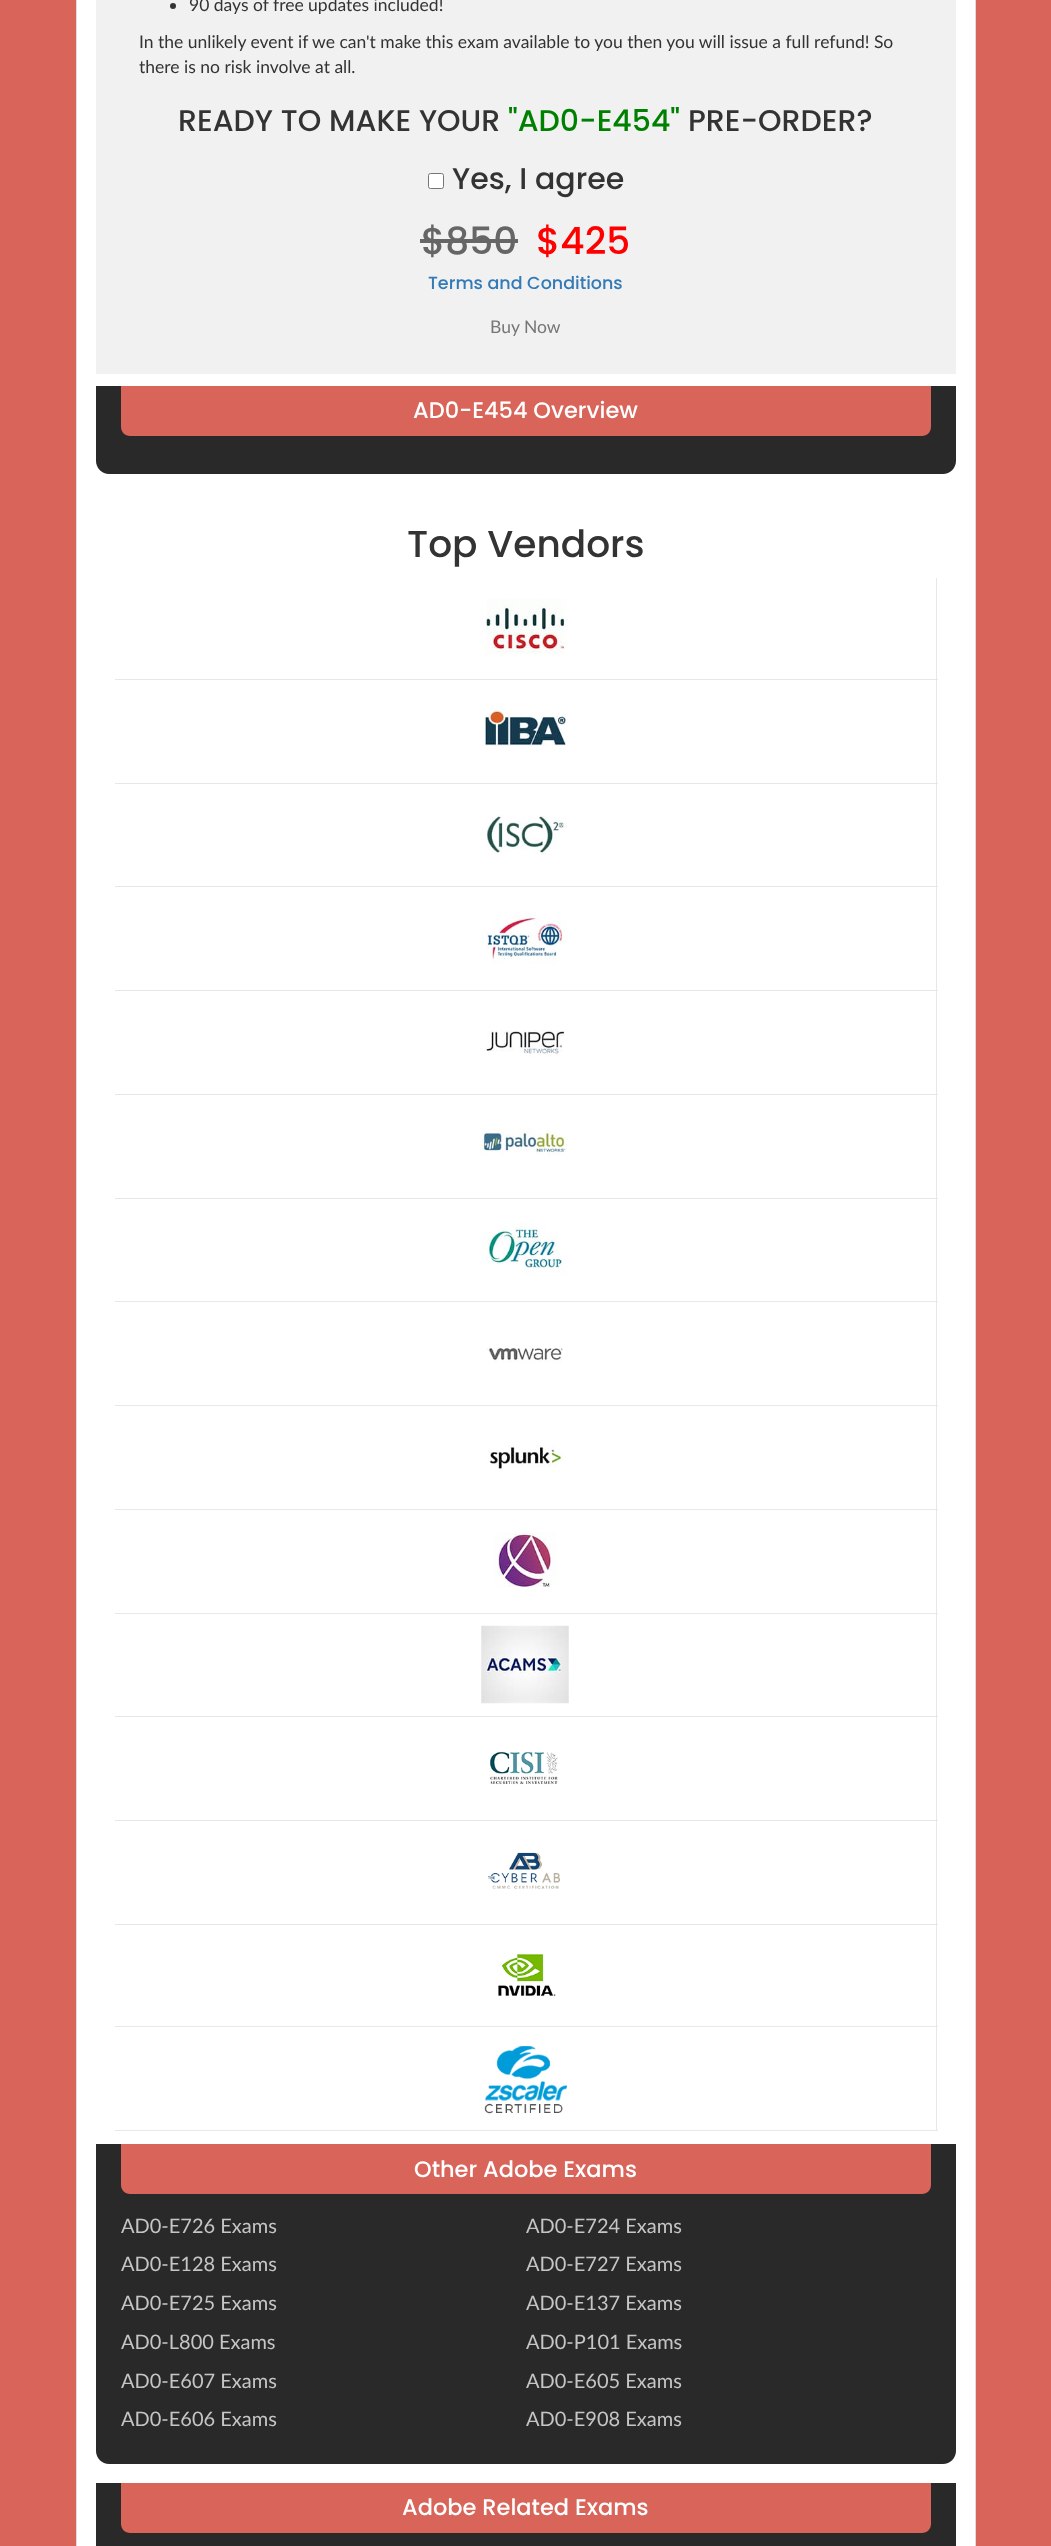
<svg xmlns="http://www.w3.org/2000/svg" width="1051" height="2546">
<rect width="100%" height="100%" fill="#d96459"/>
<rect x="76.5" y="-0.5" width="899" height="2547" fill="#fff" stroke="#ddd"/>
<rect x="96" width="860" height="374" fill="#f1f1f1"/>
<circle cx="173" cy="6" r="3" fill="#333"/>
<text x="189" y="11" style="font-family:Lato;font-size:17.5px;fill:#333">90 days of free updates included!</text>
<text x="139" y="48" style="font-family:Lato;font-size:17.5px;fill:#333">In the unlikely event if we can't make this exam available to you then you will issue a full refund! So</text>
<text x="139" y="73" style="font-family:Lato;font-size:17.5px;fill:#333">there is no risk involve at all.</text>
<text x="178" y="131" style="font-family:Poppins;font-size:30px;font-weight:500;fill:#333">READY TO MAKE YOUR</text>
<text x="508" y="131" style="font-family:Poppins;font-size:30px;font-weight:500;fill:#008000">"AD0-E454"</text>
<text x="688" y="131" style="font-family:Poppins;font-size:30px;font-weight:500;fill:#333">PRE-ORDER?</text>
<rect x="428.5" y="173.5" width="15" height="15" rx="2" fill="#fff" stroke="#767676"/>
<text x="452" y="189" style="font-family:Poppins;font-size:30px;font-weight:500;fill:#333">Yes, I agree</text>
<text x="421" y="254" style="font-family:Poppins;font-size:37.5px;font-weight:500;fill:#666">$850</text>
<rect x="420" y="239" width="98" height="4" fill="#666"/>
<text x="536" y="254" style="font-family:Poppins;font-size:37.5px;font-weight:500;fill:#f00">$425</text>
<text x="428" y="289" style="font-family:Poppins;font-size:17.5px;font-weight:500;fill:#337ab7">Terms and Conditions</text>
<text x="490" y="333" style="font-family:Lato;font-size:17.5px;fill:#767676">Buy Now</text>
<path d="M96 386h860v75c0 7-6 13-13 13h-834c-7 0-13-6-13-13z" fill="#292929"/>
<path d="M121 386h810v41c0 5-4 9-9 9h-792c-5 0-9-4-9-9z" fill="#d96459"/>
<text x="413" y="418" style="font-family:Poppins;font-size:22.5px;font-weight:500;fill:#fff">AD0-E454 Overview</text>
<text x="407" y="557" style="font-family:Poppins;font-size:37.5px;font-weight:500;fill:#333">Top Vendors</text>
<rect x="936" y="578" width="1" height="1553" fill="#e7e7e7"/>
<rect x="115" y="679" width="823" height="1" fill="#e7e7e7"/>
<image x="481" y="599" width="86" height="55" href="media/1.png"/>
<rect x="115" y="783" width="823" height="1" fill="#e7e7e7"/>
<image x="482" y="703" width="86" height="43" href="media/2.png"/>
<rect x="115" y="886" width="823" height="1" fill="#e7e7e7"/>
<image x="486" y="815" width="81" height="40" href="media/3.png"/>
<rect x="115" y="990" width="823" height="1" fill="#e7e7e7"/>
<image x="481" y="911" width="87" height="53" href="media/4.png"/>
<rect x="115" y="1094" width="823" height="1" fill="#e7e7e7"/>
<image x="486" y="1030" width="79" height="27" href="media/5.png"/>
<rect x="115" y="1198" width="823" height="1" fill="#e7e7e7"/>
<image x="481" y="1128" width="86" height="28" href="media/6.png"/>
<rect x="115" y="1301" width="823" height="1" fill="#e7e7e7"/>
<image x="481" y="1222" width="86" height="53" href="media/7.png"/>
<rect x="115" y="1405" width="823" height="1" fill="#e7e7e7"/>
<image x="487" y="1347" width="76" height="16" href="media/8.png"/>
<rect x="115" y="1509" width="823" height="1" fill="#e7e7e7"/>
<image x="487" y="1445" width="79" height="27" href="media/9.png"/>
<rect x="115" y="1613" width="823" height="1" fill="#e7e7e7"/>
<image x="494" y="1532" width="63" height="55" href="media/10.png"/>
<rect x="115" y="1716" width="823" height="1" fill="#e7e7e7"/>
<image x="481" y="1625" width="88" height="79" href="media/11.png"/>
<rect x="115" y="1820" width="823" height="1" fill="#e7e7e7"/>
<image x="490" y="1751" width="68" height="34" href="media/12.png"/>
<rect x="115" y="1924" width="823" height="1" fill="#e7e7e7"/>
<image x="488" y="1852" width="72" height="37" href="media/13.png"/>
<rect x="115" y="2026" width="823" height="1" fill="#e7e7e7"/>
<image x="498" y="1954" width="58" height="43" href="media/14.png"/>
<rect x="115" y="2130" width="823" height="1" fill="#e7e7e7"/>
<image x="484" y="2046" width="83" height="68" href="media/15.png"/>
<path d="M96 2144h860v307c0 7-6 13-13 13h-834c-7 0-13-6-13-13z" fill="#292929"/>
<path d="M121 2144h810v41c0 5-4 9-9 9h-792c-5 0-9-4-9-9z" fill="#d96459"/>
<text x="414" y="2177" style="font-family:Poppins;font-size:22.5px;font-weight:500;fill:#fff">Other Adobe Exams</text>
<text x="121" y="2233" style="font-family:Lato;font-size:20px;fill:#c5c5c5">AD0-E726 Exams</text>
<text x="526" y="2233" style="font-family:Lato;font-size:20px;fill:#c5c5c5">AD0-E724 Exams</text>
<text x="121" y="2271" style="font-family:Lato;font-size:20px;fill:#c5c5c5">AD0-E128 Exams</text>
<text x="526" y="2271" style="font-family:Lato;font-size:20px;fill:#c5c5c5">AD0-E727 Exams</text>
<text x="121" y="2310" style="font-family:Lato;font-size:20px;fill:#c5c5c5">AD0-E725 Exams</text>
<text x="526" y="2310" style="font-family:Lato;font-size:20px;fill:#c5c5c5">AD0-E137 Exams</text>
<text x="121" y="2349" style="font-family:Lato;font-size:20px;fill:#c5c5c5">AD0-L800 Exams</text>
<text x="526" y="2349" style="font-family:Lato;font-size:20px;fill:#c5c5c5">AD0-P101 Exams</text>
<text x="121" y="2388" style="font-family:Lato;font-size:20px;fill:#c5c5c5">AD0-E607 Exams</text>
<text x="526" y="2388" style="font-family:Lato;font-size:20px;fill:#c5c5c5">AD0-E605 Exams</text>
<text x="121" y="2426" style="font-family:Lato;font-size:20px;fill:#c5c5c5">AD0-E606 Exams</text>
<text x="526" y="2426" style="font-family:Lato;font-size:20px;fill:#c5c5c5">AD0-E908 Exams</text>
<rect x="96" y="2483" width="860" height="63" fill="#292929"/>
<path d="M121 2483h810v41c0 5-4 9-9 9h-792c-5 0-9-4-9-9z" fill="#d96459"/>
<text x="402" y="2515" style="font-family:Poppins;font-size:22.5px;font-weight:500;fill:#fff">Adobe Related Exams</text>
</svg>
